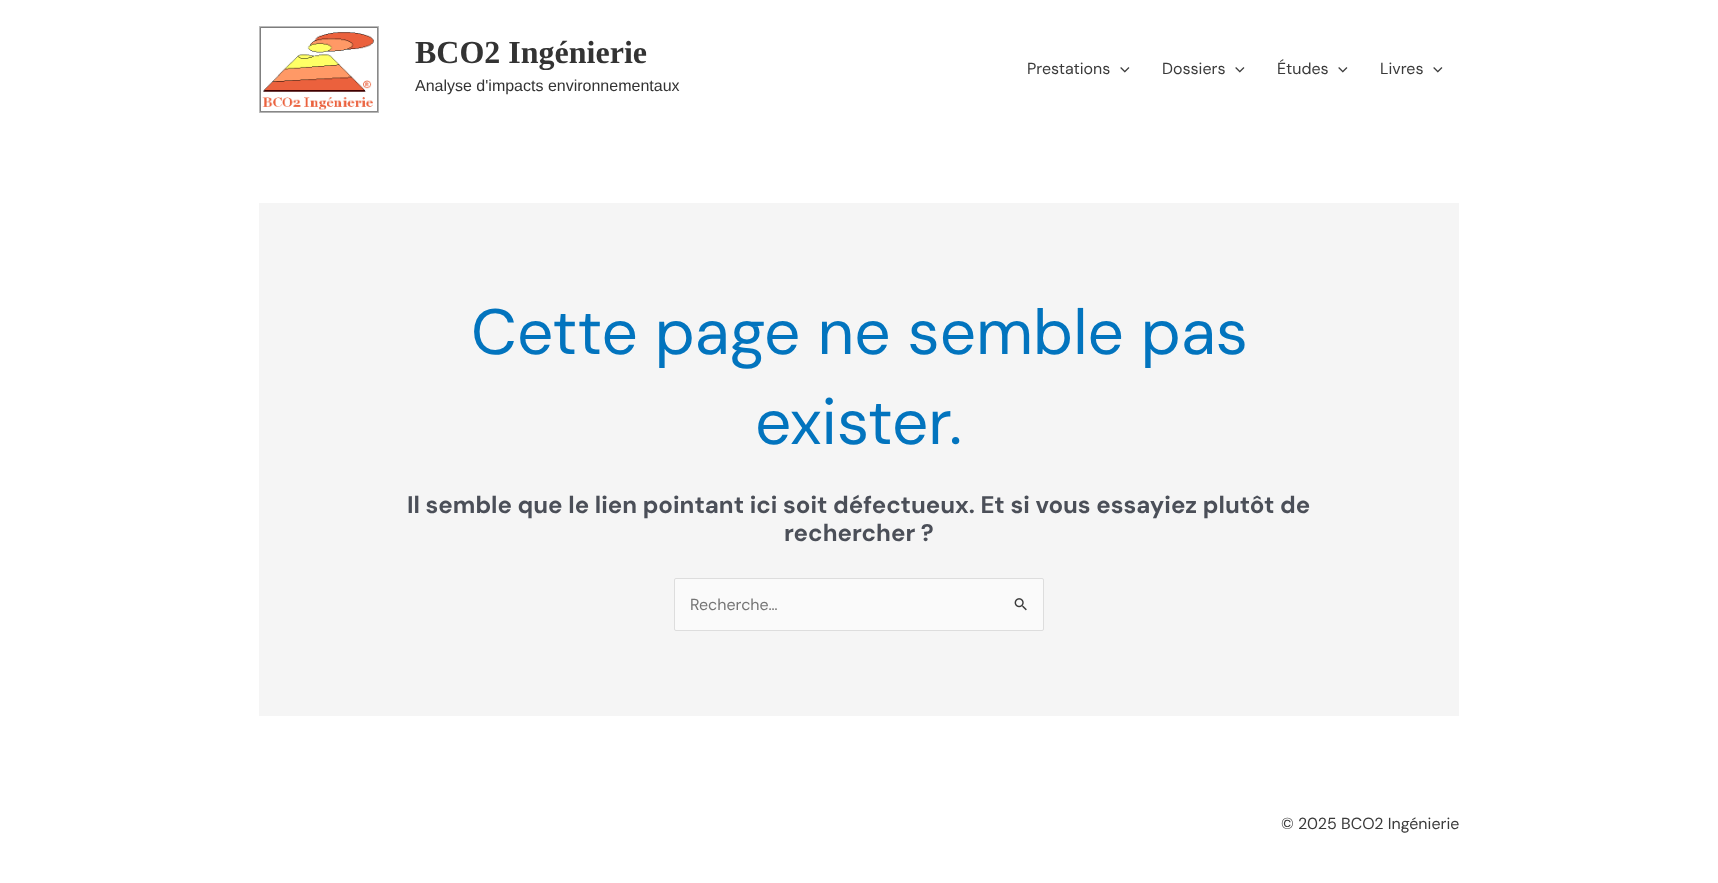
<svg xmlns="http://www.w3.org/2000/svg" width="1718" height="883">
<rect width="100%" height="100%" fill="#fff"/>
<image x="259" y="26" width="120" height="87" href="media/1.png"/>
<text x="415" y="63" style="font-family:Liberation Serif;font-size:32px;font-weight:bold;fill:#333">BCO2 Ingénierie</text>
<text x="415" y="91" style="font-family:Liberation Sans;font-size:16px;fill:#333">Analyse d'impacts environnementaux</text>
<text x="1027" y="74" style="font-family:DM Sans;font-size:16px;fill:#3a3a3a">Prestations</text>
<image x="1120" y="67" width="10" height="6" href="media/2.png"/>
<text x="1162" y="74" style="font-family:DM Sans;font-size:16px;fill:#3a3a3a">Dossiers</text>
<image x="1235" y="67" width="10" height="6" href="media/2.png"/>
<text x="1277" y="74" style="font-family:DM Sans;font-size:16px;fill:#3a3a3a">Études</text>
<image x="1338" y="67" width="10" height="6" href="media/2.png"/>
<text x="1380" y="74" style="font-family:DM Sans;font-size:16px;fill:#3a3a3a">Livres</text>
<image x="1433" y="67" width="10" height="6" href="media/2.png"/>
<rect x="259" y="203" width="1200" height="513" fill="#f5f5f5"/>
<text x="471" y="354" style="font-family:DM Sans;font-size:64px;fill:#0274be">Cette page ne semble pas</text>
<text x="755" y="444" style="font-family:DM Sans;font-size:64px;fill:#0274be">exister.</text>
<text x="407" y="513" style="font-family:DM Sans;font-size:24px;font-weight:bold;fill:#4b4f58">Il semble que le lien pointant ici soit défectueux. Et si vous essayiez plutôt de</text>
<text x="784" y="541" style="font-family:DM Sans;font-size:24px;font-weight:bold;fill:#4b4f58">rechercher ?</text>
<rect x="674.5" y="578.5" width="369" height="52" rx="1.5" fill="#fafafa" stroke="#ddd"/>
<text x="690" y="610" style="font-family:DM Sans;font-size:16px;fill:#757575">Recherche…</text>
<image x="1014" y="598" width="13" height="13" href="media/3.png"/>
<text x="1281" y="829" style="font-family:DM Sans;font-size:16px;fill:#3a3a3a">© 2025 BCO2 Ingénierie</text>
</svg>
